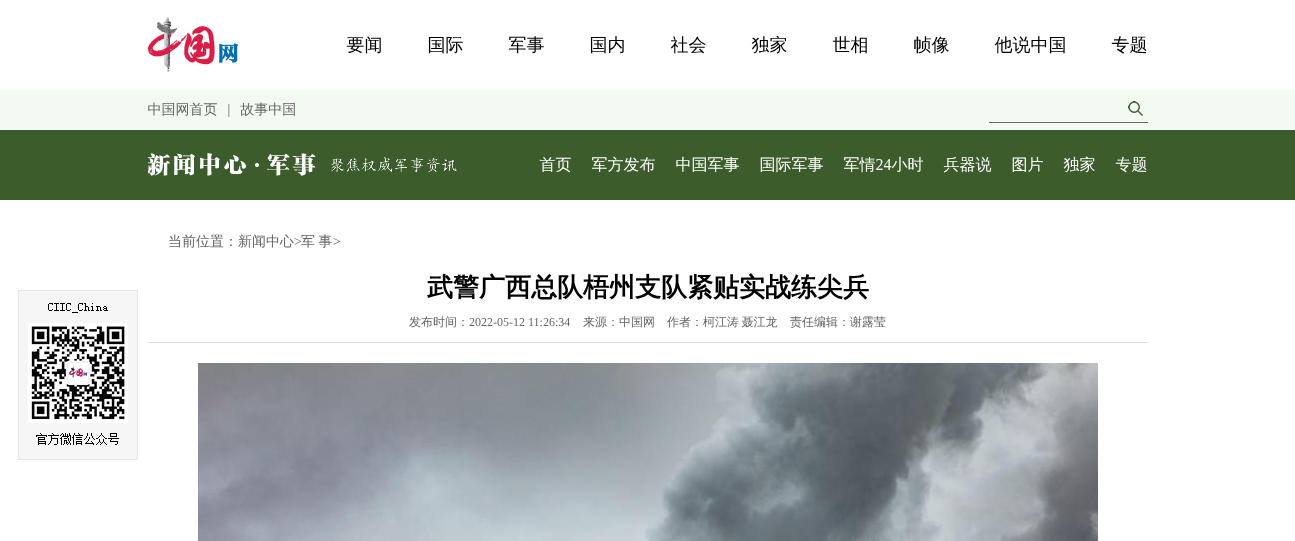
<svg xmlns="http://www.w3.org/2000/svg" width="1295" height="541">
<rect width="100%" height="100%" fill="#fff"/>
<image x="0" y="17" width="1295" height="183" href="media/1.png"/>
<image x="18" y="290" width="120" height="170" href="media/2.png"/>
<text x="168" y="246" style="font-family:WenQuanYi Zen Hei;font-size:14px;font-weight:500;fill:#666">当前位置：新闻中心</text>
<text x="294" y="246" style="font-family:Liberation Serif;font-size:14px;fill:#666">&gt;</text>
<text x="301" y="246" word-spacing="-1" style="font-family:WenQuanYi Zen Hei;font-size:14px;font-weight:500;fill:#666">军 事</text>
<text x="333" y="246" style="font-family:Liberation Serif;font-size:14px;fill:#666">&gt;</text>
<text x="427" y="296" style="font-family:WenQuanYi Zen Hei;font-size:26px;font-weight:bold;fill:#000">武警广西总队梧州支队紧贴实战练尖兵</text>
<rect x="148" y="342" width="1000" height="1" fill="#dfdfdf"/>
<text x="409" y="326" style="font-family:WenQuanYi Zen Hei;font-size:12px;font-weight:500;fill:#666">发布时间：</text>
<text x="469" y="326" style="font-family:Liberation Serif;font-size:12px;fill:#666">2022-05-12 11:26:34</text>
<text x="583" y="326" style="font-family:WenQuanYi Zen Hei;font-size:12px;font-weight:500;fill:#666">来源：中国网</text>
<text x="667" y="326" word-spacing="-1" style="font-family:WenQuanYi Zen Hei;font-size:12px;font-weight:500;fill:#666">作者：柯江涛 聂江龙</text>
<text x="790" y="326" style="font-family:WenQuanYi Zen Hei;font-size:12px;font-weight:500;fill:#666">责任编辑：谢露莹</text>
<image x="198" y="363" width="900" height="178" href="media/3.png"/>
</svg>
